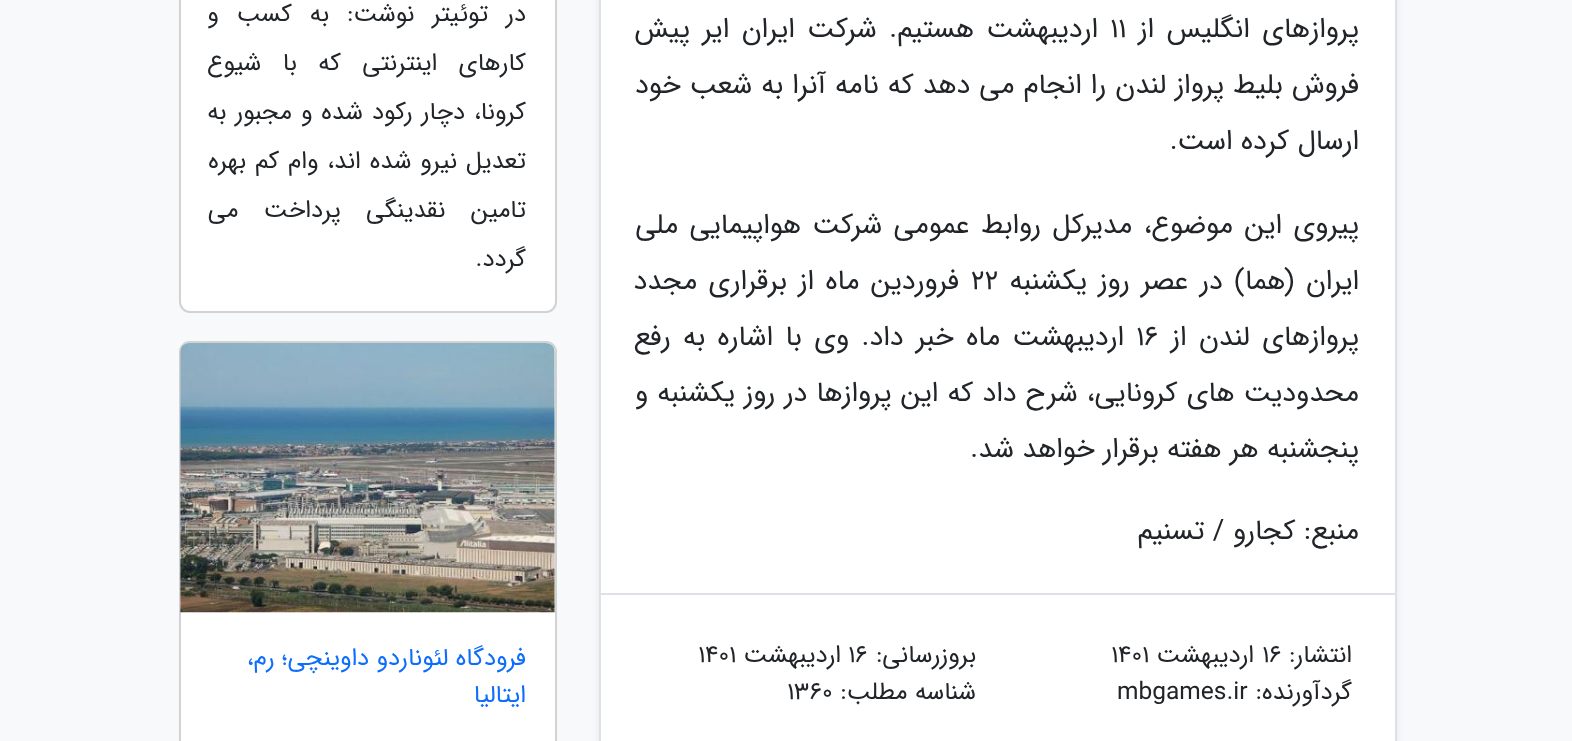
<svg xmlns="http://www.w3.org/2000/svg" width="1572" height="741">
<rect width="100%" height="100%" fill="#f8f9fa"/>
<rect x="599" y="-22" width="798" height="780" rx="11" fill="#00000012" filter="blur(3.5px)"/>
<rect x="600" y="-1" width="796" height="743" fill="#fff" stroke="#dee2e6" stroke-width="2"/>
<text x="1359" y="37" word-spacing="4" style="font-family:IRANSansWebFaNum;font-size:28px;direction:rtl;fill:#212529">پروازهای انگلیس از</text>
<text x="1110" y="37" style="font-family:IRANSansWebFaNum;font-size:28px;fill:#212529">11</text>
<text x="1098" y="37" word-spacing="4" style="font-family:IRANSansWebFaNum;font-size:28px;direction:rtl;fill:#212529">اردیبهشت هستیم. شرکت ایران ایر پیش</text>
<text x="1359" y="93" word-spacing="0.6" style="font-family:IRANSansWebFaNum;font-size:28px;direction:rtl;fill:#212529">فروش بلیط پرواز لندن را انجام می دهد که نامه آنرا به شعب خود</text>
<text x="1359" y="149" style="font-family:IRANSansWebFaNum;font-size:28px;direction:rtl;fill:#212529">ارسال کرده است.</text>
<text x="1359" y="233" word-spacing="3" style="font-family:IRANSansWebFaNum;font-size:28px;direction:rtl;fill:#212529">پیروی این موضوع، مدیرکل روابط عمومی شرکت هواپیمایی ملی</text>
<text x="1359" y="289" word-spacing="3" style="font-family:IRANSansWebFaNum;font-size:28px;direction:rtl;fill:#212529">ایران (هما) در عصر روز یکشنبه</text>
<text x="971" y="289" style="font-family:IRANSansWebFaNum;font-size:28px;fill:#212529">22</text>
<text x="959" y="289" word-spacing="3" style="font-family:IRANSansWebFaNum;font-size:28px;direction:rtl;fill:#212529">فروردین ماه از برقراری مجدد</text>
<text x="1359" y="345" word-spacing="4" style="font-family:IRANSansWebFaNum;font-size:28px;direction:rtl;fill:#212529">پروازهای لندن از</text>
<text x="1136" y="345" style="font-family:IRANSansWebFaNum;font-size:28px;fill:#212529">16</text>
<text x="1124" y="345" word-spacing="4" style="font-family:IRANSansWebFaNum;font-size:28px;direction:rtl;fill:#212529">اردیبهشت ماه خبر داد. وی با اشاره به رفع</text>
<text x="1359" y="401" word-spacing="0.75" style="font-family:IRANSansWebFaNum;font-size:28px;direction:rtl;fill:#212529">محدودیت های کرونایی، شرح داد که این پروازها در روز یکشنبه و</text>
<text x="1359" y="457" style="font-family:IRANSansWebFaNum;font-size:28px;direction:rtl;fill:#212529">پنجشنبه هر هفته برقرار خواهد شد.</text>
<text x="1359" y="539" style="font-family:IRANSansWebFaNum;font-size:28px;direction:rtl;fill:#212529">منبع: کجارو / تسنیم</text>
<rect x="600" y="593" width="795" height="2" fill="#dee2e6"/>
<text x="1352" y="662" style="font-family:IRANSansWebFaNum;font-size:24.5px;direction:rtl;fill:#212529">انتشار:</text>
<text x="1262" y="662" style="font-family:IRANSansWebFaNum;font-size:24.5px;fill:#212529">16</text>
<text x="1254" y="662" style="font-family:IRANSansWebFaNum;font-size:24.5px;direction:rtl;fill:#212529">اردیبهشت</text>
<text x="1111" y="662" style="font-family:IRANSansWebFaNum;font-size:24.5px;fill:#212529">1401</text>
<text x="976" y="662" style="font-family:IRANSansWebFaNum;font-size:24.5px;direction:rtl;fill:#212529">بروزرسانی:</text>
<text x="848" y="662" style="font-family:IRANSansWebFaNum;font-size:24.5px;fill:#212529">16</text>
<text x="841" y="662" style="font-family:IRANSansWebFaNum;font-size:24.5px;direction:rtl;fill:#212529">اردیبهشت</text>
<text x="698" y="662" style="font-family:IRANSansWebFaNum;font-size:24.5px;fill:#212529">1401</text>
<text x="1352" y="699" style="font-family:IRANSansWebFaNum;font-size:24.5px;direction:rtl;fill:#212529">گردآورنده:</text>
<text x="1117" y="699" style="font-family:IRANSansWebFaNum;font-size:24.5px;fill:#212529">mbgames.ir</text>
<text x="976" y="699" style="font-family:IRANSansWebFaNum;font-size:24.5px;direction:rtl;fill:#212529">شناسه مطلب:</text>
<text x="787" y="699" style="font-family:IRANSansWebFaNum;font-size:24.5px;fill:#212529">1360</text>
<rect x="180" y="-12" width="376" height="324" rx="10" fill="#fff" stroke="#d2d2d2" stroke-width="2"/>
<text x="526" y="21" word-spacing="10.5" style="font-family:IRANSansWebFaNum;font-size:24.5px;direction:rtl;fill:#212529">در توئیتر نوشت: به کسب و</text>
<text x="526" y="70" word-spacing="14" style="font-family:IRANSansWebFaNum;font-size:24.5px;direction:rtl;fill:#212529">کارهای اینترنتی که با شیوع</text>
<text x="526" y="119" word-spacing="1.5" style="font-family:IRANSansWebFaNum;font-size:24.5px;direction:rtl;fill:#212529">کرونا، دچار رکود شده و مجبور به</text>
<text x="526" y="168" word-spacing="1.5" style="font-family:IRANSansWebFaNum;font-size:24.5px;direction:rtl;fill:#212529">تعدیل نیرو شده اند، وام کم بهره</text>
<text x="526" y="217" word-spacing="18" style="font-family:IRANSansWebFaNum;font-size:24.5px;direction:rtl;fill:#212529">تامین نقدینگی پرداخت می</text>
<text x="526" y="266" style="font-family:IRANSansWebFaNum;font-size:24.5px;direction:rtl;fill:#212529">گردد.</text>
<rect x="180" y="342" width="376" height="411" rx="10" fill="#fff" stroke="#d2d2d2" stroke-width="2"/>
<image x="180" y="343" width="375" height="270" href="media/1.png"/>
<text x="526" y="665" style="font-family:IRANSansWebFaNum;font-size:24.5px;direction:rtl;fill:#0d6efd">فرودگاه لئوناردو داوینچی؛ رم،</text>
<text x="526" y="702" style="font-family:IRANSansWebFaNum;font-size:24.5px;direction:rtl;fill:#0d6efd">ایتالیا</text>
</svg>
